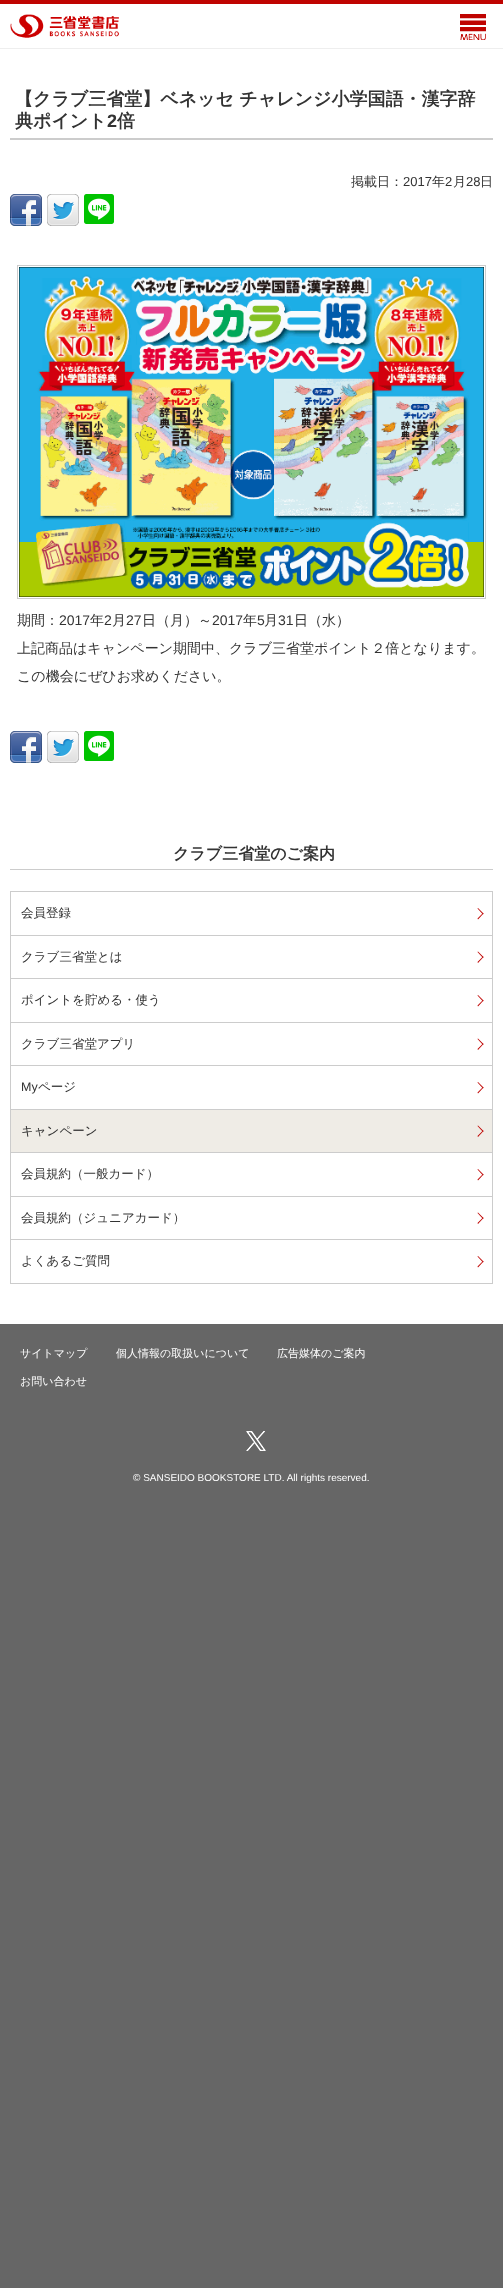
<svg xmlns="http://www.w3.org/2000/svg" width="503" height="2288">
<rect width="100%" height="100%" fill="#666"/>
<rect width="503" height="4" fill="#bf0300"/>
<rect y="4" width="503" height="1320" fill="#fff"/>
<rect y="48" width="503" height="1" fill="#eee"/>
<image x="460" y="14" width="26" height="26" href="media/1.png"/>
<image x="10" y="14" width="109" height="24" href="media/2.png"/>
<rect x="10" y="138" width="483" height="2" fill="#ccc"/>
<text x="15" y="105" style="font-family:WenQuanYi Zen Hei;font-size:18px;font-weight:bold;fill:#333">【クラブ三省堂】ベネッセ チャレンジ小学国語・漢字辞</text>
<text x="15" y="127" style="font-family:WenQuanYi Zen Hei;font-size:18px;font-weight:bold;fill:#333">典ポイント</text>
<text x="107" y="127" style="font-family:Liberation Sans;font-size:18px;font-weight:bold;fill:#333">2</text>
<text x="117" y="127" style="font-family:WenQuanYi Zen Hei;font-size:18px;font-weight:bold;fill:#333">倍</text>
<text x="351" y="186" style="font-family:WenQuanYi Zen Hei;font-size:13px;font-weight:500;fill:#333">掲載日：</text>
<text x="403" y="186" style="font-family:Liberation Sans;font-size:13px;fill:#333">2017</text>
<text x="432" y="186" style="font-family:WenQuanYi Zen Hei;font-size:13px;font-weight:500;fill:#333">年</text>
<text x="445" y="186" style="font-family:Liberation Sans;font-size:13px;fill:#333">2</text>
<text x="453" y="186" style="font-family:WenQuanYi Zen Hei;font-size:13px;font-weight:500;fill:#333">月</text>
<text x="466" y="186" style="font-family:Liberation Sans;font-size:13px;fill:#333">28</text>
<text x="480" y="186" style="font-family:WenQuanYi Zen Hei;font-size:13px;font-weight:500;fill:#333">日</text>
<image x="10" y="194" width="32" height="32" href="media/3.png"/>
<image x="47" y="194" width="32" height="32" href="media/4.png"/>
<image x="84" y="194" width="30" height="30" href="media/5.png"/>
<rect x="17.5" y="265.5" width="468" height="333" fill="none" stroke="#ccc"/>
<image x="19" y="267" width="465" height="330" href="media/6.png"/>
<text x="17" y="625" style="font-family:WenQuanYi Zen Hei;font-size:14px;font-weight:500;fill:#333">期間：</text>
<text x="59" y="625" style="font-family:Liberation Sans;font-size:14px;fill:#333">2017</text>
<text x="90" y="625" style="font-family:WenQuanYi Zen Hei;font-size:14px;font-weight:500;fill:#333">年</text>
<text x="104" y="625" style="font-family:Liberation Sans;font-size:14px;fill:#333">2</text>
<text x="112" y="625" style="font-family:WenQuanYi Zen Hei;font-size:14px;font-weight:500;fill:#333">月</text>
<text x="126" y="625" style="font-family:Liberation Sans;font-size:14px;fill:#333">27</text>
<text x="142" y="625" style="font-family:WenQuanYi Zen Hei;font-size:14px;font-weight:500;fill:#333">日（月）～</text>
<text x="212" y="625" style="font-family:Liberation Sans;font-size:14px;fill:#333">2017</text>
<text x="243" y="625" style="font-family:WenQuanYi Zen Hei;font-size:14px;font-weight:500;fill:#333">年</text>
<text x="257" y="625" style="font-family:Liberation Sans;font-size:14px;fill:#333">5</text>
<text x="264" y="625" style="font-family:WenQuanYi Zen Hei;font-size:14px;font-weight:500;fill:#333">月</text>
<text x="278" y="625" style="font-family:Liberation Sans;font-size:14px;fill:#333">31</text>
<text x="294" y="625" style="font-family:WenQuanYi Zen Hei;font-size:14px;font-weight:500;fill:#333">日（水）</text>
<text x="17" y="653" style="font-family:WenQuanYi Zen Hei;font-size:14px;font-weight:500;fill:#333">上記商品はキャンペーン期間中、クラブ三省堂ポイント２倍となります。</text>
<text x="17" y="681" style="font-family:WenQuanYi Zen Hei;font-size:14px;font-weight:500;fill:#333">この機会にぜひお求めください。</text>
<image x="10" y="731" width="32" height="32" href="media/3.png"/>
<image x="47" y="731" width="32" height="32" href="media/4.png"/>
<image x="84" y="731" width="30" height="30" href="media/5.png"/>
<rect x="10" y="869" width="483" height="1" fill="#ccc"/>
<text x="173" y="859" style="font-family:WenQuanYi Zen Hei;font-size:16px;font-weight:bold;fill:#333">クラブ三省堂のご案内</text>
<rect x="10.5" y="891.5" width="482" height="44" fill="none" stroke="#ccc"/>
<text x="21" y="917" style="font-family:WenQuanYi Zen Hei;font-size:12.5px;font-weight:500;fill:#333">会員登録</text>
<path d="M478 908l5.5 5.5l-.5 1l-5.5-6z" fill="#bf0300"/>
<path d="M483 913l.5 .5l-5.5 6l-.5-1z" fill="#bf0300"/>
<rect x="10.5" y="935.5" width="482" height="43" fill="none" stroke="#ccc"/>
<text x="21" y="961" style="font-family:WenQuanYi Zen Hei;font-size:12.5px;font-weight:500;fill:#333">クラブ三省堂とは</text>
<path d="M478 951.5l5.5 5.5l-.5 1l-5.5-6z" fill="#bf0300"/>
<path d="M483 956.5l.5 .5l-5.5 6l-.5-1z" fill="#bf0300"/>
<rect x="10.5" y="978.5" width="482" height="44" fill="none" stroke="#ccc"/>
<text x="21" y="1004" style="font-family:WenQuanYi Zen Hei;font-size:12.5px;font-weight:500;fill:#333">ポイントを貯める・使う</text>
<path d="M478 995l5.5 5.5l-.5 1l-5.5-6z" fill="#bf0300"/>
<path d="M483 1000l.5 .5l-5.5 6l-.5-1z" fill="#bf0300"/>
<rect x="10.5" y="1022.5" width="482" height="43" fill="none" stroke="#ccc"/>
<text x="21" y="1048" style="font-family:WenQuanYi Zen Hei;font-size:12.5px;font-weight:500;fill:#333">クラブ三省堂アプリ</text>
<path d="M478 1038.5l5.5 5.5l-.5 1l-5.5-6z" fill="#bf0300"/>
<path d="M483 1043.5l.5 .5l-5.5 6l-.5-1z" fill="#bf0300"/>
<rect x="10.5" y="1065.5" width="482" height="44" fill="none" stroke="#ccc"/>
<text x="21" y="1091" style="font-family:Liberation Sans;font-size:12.5px;fill:#333">My</text>
<text x="38" y="1091" style="font-family:WenQuanYi Zen Hei;font-size:12.5px;font-weight:500;fill:#333">ページ</text>
<path d="M478 1082l5.5 5.5l-.5 1l-5.5-6z" fill="#bf0300"/>
<path d="M483 1087l.5 .5l-5.5 6l-.5-1z" fill="#bf0300"/>
<rect x="10.5" y="1109.5" width="482" height="43" fill="#efece6" stroke="#ccc"/>
<text x="21" y="1135" style="font-family:WenQuanYi Zen Hei;font-size:12.5px;font-weight:500;fill:#333">キャンペーン</text>
<path d="M478 1125.5l5.5 5.5l-.5 1l-5.5-6z" fill="#bf0300"/>
<path d="M483 1130.5l.5 .5l-5.5 6l-.5-1z" fill="#bf0300"/>
<rect x="10.5" y="1152.5" width="482" height="44" fill="none" stroke="#ccc"/>
<text x="21" y="1178" style="font-family:WenQuanYi Zen Hei;font-size:12.5px;font-weight:500;fill:#333">会員規約（一般カード）</text>
<path d="M478 1169l5.5 5.5l-.5 1l-5.5-6z" fill="#bf0300"/>
<path d="M483 1174l.5 .5l-5.5 6l-.5-1z" fill="#bf0300"/>
<rect x="10.5" y="1196.5" width="482" height="43" fill="none" stroke="#ccc"/>
<text x="21" y="1222" style="font-family:WenQuanYi Zen Hei;font-size:12.5px;font-weight:500;fill:#333">会員規約（ジュニアカード）</text>
<path d="M478 1212.5l5.5 5.5l-.5 1l-5.5-6z" fill="#bf0300"/>
<path d="M483 1217.5l.5 .5l-5.5 6l-.5-1z" fill="#bf0300"/>
<rect x="10.5" y="1239.5" width="482" height="44" fill="none" stroke="#ccc"/>
<text x="21" y="1265" style="font-family:WenQuanYi Zen Hei;font-size:12.5px;font-weight:500;fill:#333">よくあるご質問</text>
<path d="M478 1256l5.5 5.5l-.5 1l-5.5-6z" fill="#bf0300"/>
<path d="M483 1261l.5 .5l-5.5 6l-.5-1z" fill="#bf0300"/>
<text x="20" y="1357" style="font-family:WenQuanYi Zen Hei;font-size:11px;font-weight:500;fill:#fff">サイトマップ</text>
<text x="116" y="1357" style="font-family:WenQuanYi Zen Hei;font-size:11px;font-weight:500;fill:#fff">個人情報の取扱いについて</text>
<text x="277" y="1357" style="font-family:WenQuanYi Zen Hei;font-size:11px;font-weight:500;fill:#fff">広告媒体のご案内</text>
<text x="20" y="1385" style="font-family:WenQuanYi Zen Hei;font-size:11px;font-weight:500;fill:#fff">お問い合わせ</text>
<image x="246" y="1431" width="20" height="20" href="media/7.png"/>
<text x="133" y="1481" style="font-family:Liberation Sans;font-size:10px;fill:#fff">© SANSEIDO BOOKSTORE LTD. All rights reserved.</text>
</svg>
